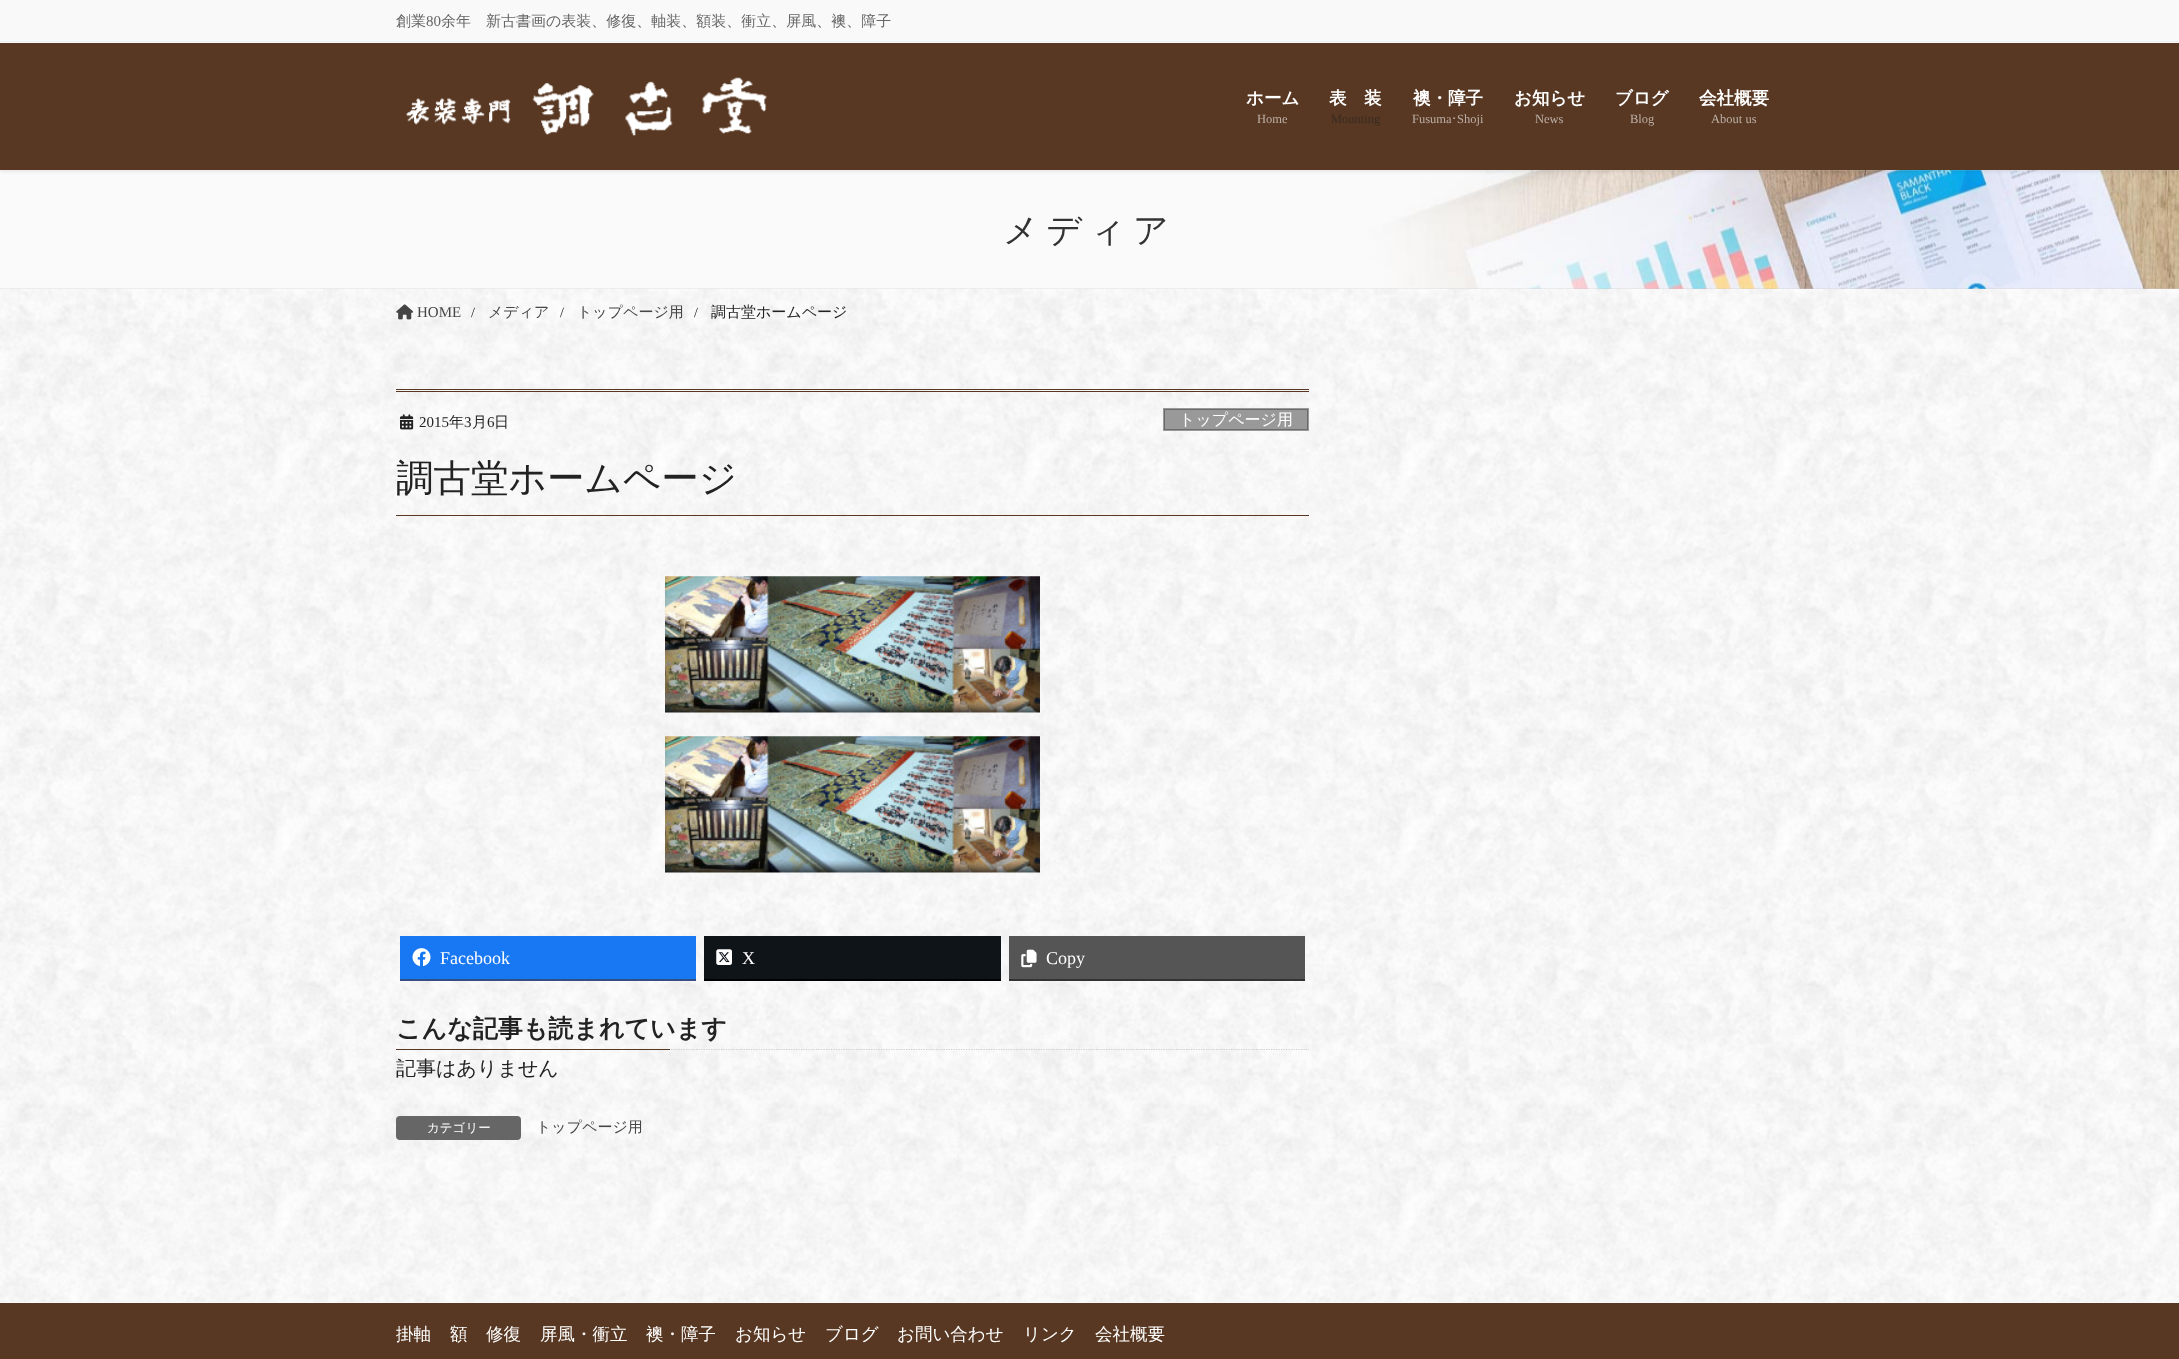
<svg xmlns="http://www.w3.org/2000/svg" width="2179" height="1359">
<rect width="100%" height="100%" fill="#fff"/>
<image x="0" y="170" width="2179" height="119" href="media/2.png"/>
<rect y="1" width="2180" height="170" fill="#0000001a" filter="blur(2px)"/>
<rect y="43" width="2179" height="127" fill="#583822"/>
<rect width="2179" height="43" fill="#f9f9f9"/>
<rect y="41" width="2179" height="1" fill="#efefef"/>
<text x="396" y="26" style="font-family:WenQuanYi Zen Hei;font-size:15px;font-weight:500;fill:#666">創業</text>
<text x="426" y="26" style="font-family:Liberation Serif;font-size:15px;fill:#666">80</text>
<text x="441" y="26" style="font-family:WenQuanYi Zen Hei;font-size:15px;font-weight:500;fill:#666">余年　新古書画の表装、修復、軸装、額装、衝立、屏風、襖、障子</text>
<image x="406" y="77" width="362" height="59" href="media/1.png"/>
<text x="1246" y="104" style="font-family:WenQuanYi Zen Hei;font-size:17.5px;font-weight:bold;fill:#fff">ホーム</text>
<text x="1257" y="123" style="font-family:Liberation Serif;font-size:12.5px;fill:#bcafa7">Home</text>
<text x="1329" y="104" style="font-family:WenQuanYi Zen Hei;font-size:17.5px;font-weight:bold;fill:#fff">表　装</text>
<text x="1331" y="123" style="font-family:Liberation Serif;font-size:12.5px;fill:#382b22">Mounting</text>
<text x="1413" y="104" style="font-family:WenQuanYi Zen Hei;font-size:17.5px;font-weight:bold;fill:#fff">襖・障子</text>
<text x="1412" y="123" style="font-family:Liberation Serif;font-size:12.5px;fill:#bcafa7">Fusuma</text>
<text x="1451" y="123" style="font-family:IPAPGothic;font-size:12.5px;fill:#bcafa7">･</text>
<text x="1457" y="123" style="font-family:Liberation Serif;font-size:12.5px;fill:#bcafa7">Shoji</text>
<text x="1514" y="104" style="font-family:WenQuanYi Zen Hei;font-size:17.5px;font-weight:bold;fill:#fff">お知らせ</text>
<text x="1535" y="123" style="font-family:Liberation Serif;font-size:12.5px;fill:#bcafa7">News</text>
<text x="1615" y="104" style="font-family:WenQuanYi Zen Hei;font-size:17.5px;font-weight:bold;fill:#fff">ブログ</text>
<text x="1630" y="123" style="font-family:Liberation Serif;font-size:12.5px;fill:#bcafa7">Blog</text>
<text x="1699" y="104" style="font-family:WenQuanYi Zen Hei;font-size:17.5px;font-weight:bold;fill:#fff">会社概要</text>
<text x="1711" y="123" style="font-family:Liberation Serif;font-size:12.5px;fill:#bcafa7">About us</text>
<text x="1003" y="242" style="font-family:WenQuanYi Zen Hei;font-size:35px;font-weight:500;letter-spacing:7.5px;fill:#333">メディア</text>
<image x="0" y="288" width="2179" height="1015" href="media/4.png"/>
<rect y="288" width="2179" height="1" fill="#0000000d"/>
<image x="396" y="304" width="18" height="16" href="media/3.png"/>
<text x="417" y="317" style="font-family:Liberation Serif;font-size:15px;fill:#464646">HOME</text>
<text x="471" y="317" style="font-family:Liberation Serif;font-size:14px;fill:#222">/</text>
<text x="488" y="317" style="font-family:WenQuanYi Zen Hei;font-size:15px;font-weight:500;fill:#464646">メディア</text>
<text x="560" y="317" style="font-family:Liberation Serif;font-size:14px;fill:#222">/</text>
<text x="577" y="317" style="font-family:WenQuanYi Zen Hei;font-size:15px;font-weight:500;fill:#464646">トップページ用</text>
<text x="694" y="317" style="font-family:Liberation Serif;font-size:14px;fill:#222">/</text>
<text x="711" y="317" style="font-family:WenQuanYi Zen Hei;font-size:15px;font-weight:500;fill:#222">調古堂ホームページ</text>
<rect x="396" y="389" width="913" height="1" fill="#583822"/>
<rect x="396" y="391" width="913" height="1" fill="#583822"/>
<rect x="396" y="515" width="913" height="1" fill="#583822"/>
<image x="400" y="414" width="14" height="16" href="media/5.png"/>
<text x="419" y="427" style="font-family:Liberation Serif;font-size:15px;fill:#222">2015</text>
<text x="449" y="427" style="font-family:WenQuanYi Zen Hei;font-size:15px;font-weight:500;fill:#222">年</text>
<text x="464" y="427" style="font-family:Liberation Serif;font-size:15px;fill:#222">3</text>
<text x="472" y="427" style="font-family:WenQuanYi Zen Hei;font-size:15px;font-weight:500;fill:#222">月</text>
<text x="487" y="427" style="font-family:Liberation Serif;font-size:15px;fill:#222">6</text>
<text x="494" y="427" style="font-family:WenQuanYi Zen Hei;font-size:15px;font-weight:500;fill:#222">日</text>
<rect x="1163" y="408" width="146" height="23" fill="#999"/>
<rect x="1164.5" y="409.5" width="143" height="20" fill="none" stroke="#6b6b6b"/>
<text x="1179" y="425" style="font-family:WenQuanYi Zen Hei;font-size:16px;font-weight:500;fill:#fff">トップページ用</text>
<text x="396" y="491" style="font-family:WenQuanYi Zen Hei;font-size:37.5px;font-weight:500;fill:#222">調古堂ホームページ</text>
<image x="665" y="576" width="375" height="137" href="media/6.png"/>
<image x="665" y="736" width="375" height="137" href="media/7.png"/>
<rect x="400" y="979" width="296" height="2" fill="#344e84"/>
<rect x="400" y="936" width="296" height="43" fill="#1877f2"/>
<image x="412" y="948" width="19" height="19" href="media/8.png"/>
<text x="440" y="964" style="font-family:Liberation Serif;font-size:18px;fill:#fff">Facebook</text>
<rect x="704" y="979" width="297" height="2" fill="#000"/>
<rect x="704" y="936" width="297" height="43" fill="#0f1419"/>
<image x="716" y="949" width="16" height="16" href="media/9.png"/>
<text x="742" y="964" style="font-family:Liberation Serif;font-size:18px;fill:#fff">X</text>
<rect x="1009" y="979" width="296" height="2" fill="#333"/>
<rect x="1009" y="936" width="296" height="43" fill="#555"/>
<image x="1021" y="949" width="16" height="19" href="media/10.png"/>
<text x="1046" y="964" style="font-family:Liberation Serif;font-size:18px;fill:#fff">Copy</text>
<path d="M396 1049.5h913" fill="none" stroke="#ccc" stroke-width="1.2" stroke-dasharray="1.25 1.25"/>
<text x="396" y="1037" style="font-family:WenQuanYi Zen Hei;font-size:25px;font-weight:bold;fill:#222">こんな記事も読まれています</text>
<rect x="396" y="1049" width="274" height="1" fill="#583822"/>
<text x="396" y="1075" style="font-family:WenQuanYi Zen Hei;font-size:20px;font-weight:500;fill:#222">記事はありません</text>
<rect x="396" y="1116" width="125" height="24" rx="4" fill="#666"/>
<text x="427" y="1132" style="font-family:WenQuanYi Zen Hei;font-size:12.5px;font-weight:500;fill:#fff">カテゴリー</text>
<text x="536" y="1132" style="font-family:WenQuanYi Zen Hei;font-size:15px;font-weight:500;fill:#464646">トップページ用</text>
<rect y="1303" width="2179" height="56" fill="#583822"/>
<text x="396" y="1340" style="font-family:WenQuanYi Zen Hei;font-size:17.5px;font-weight:500;fill:#fff">掛軸</text>
<text x="450" y="1340" style="font-family:WenQuanYi Zen Hei;font-size:17.5px;font-weight:500;fill:#fff">額</text>
<text x="486" y="1340" style="font-family:WenQuanYi Zen Hei;font-size:17.5px;font-weight:500;fill:#fff">修復</text>
<text x="540" y="1340" style="font-family:WenQuanYi Zen Hei;font-size:17.5px;font-weight:500;fill:#fff">屏風・衝立</text>
<text x="646" y="1340" style="font-family:WenQuanYi Zen Hei;font-size:17.5px;font-weight:500;fill:#fff">襖・障子</text>
<text x="735" y="1340" style="font-family:WenQuanYi Zen Hei;font-size:17.5px;font-weight:500;fill:#fff">お知らせ</text>
<text x="825" y="1340" style="font-family:WenQuanYi Zen Hei;font-size:17.5px;font-weight:500;fill:#fff">ブログ</text>
<text x="897" y="1340" style="font-family:WenQuanYi Zen Hei;font-size:17.5px;font-weight:500;fill:#fff">お問い合わせ</text>
<text x="1023" y="1340" style="font-family:WenQuanYi Zen Hei;font-size:17.5px;font-weight:500;fill:#fff">リンク</text>
<text x="1095" y="1340" style="font-family:WenQuanYi Zen Hei;font-size:17.5px;font-weight:500;fill:#fff">会社概要</text>
</svg>
